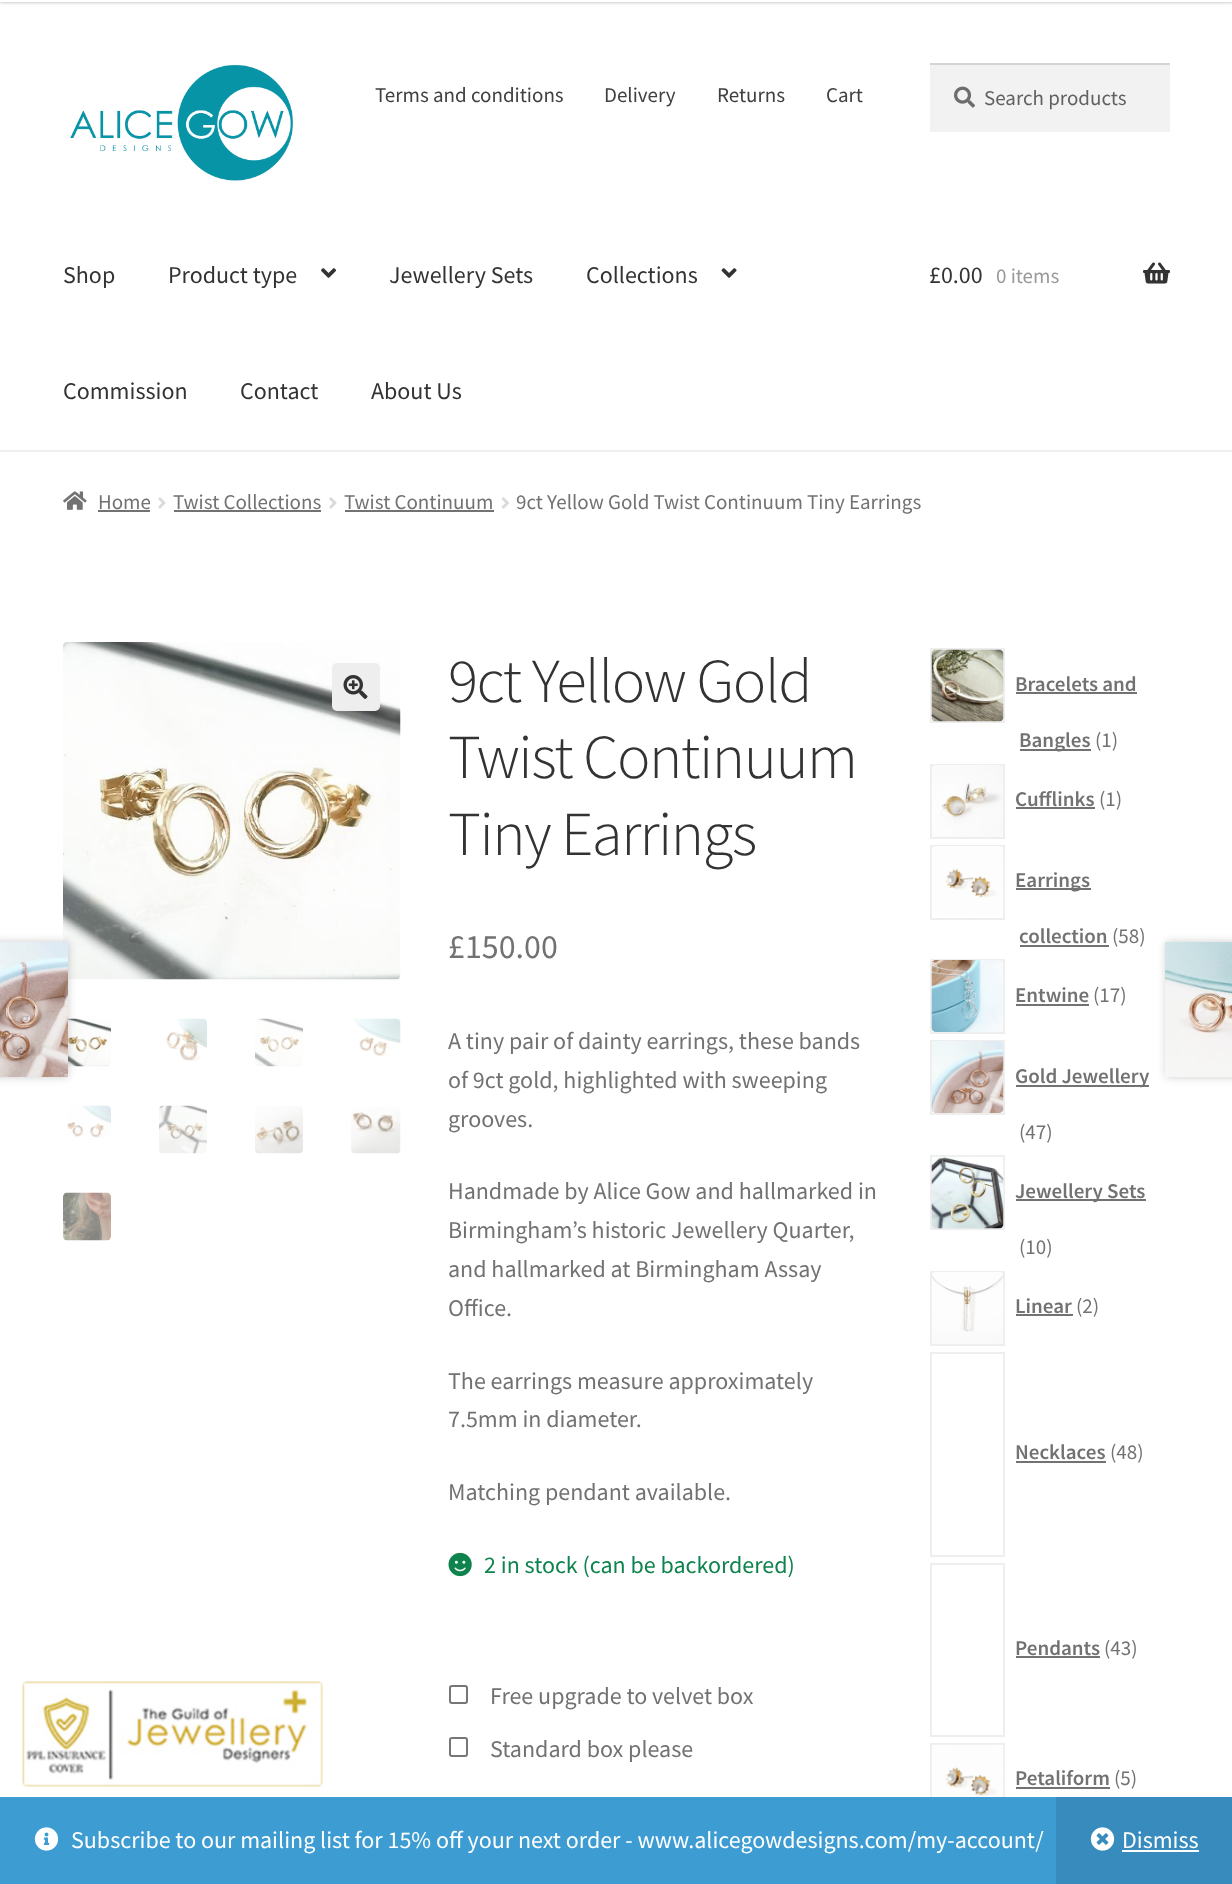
<svg xmlns="http://www.w3.org/2000/svg" width="1232" height="1884">
<rect width="100%" height="100%" fill="#fff"/>
<rect y="-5" width="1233" height="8" fill="#00000033" filter="blur(1.5px)"/>
<rect width="1232" height="2" fill="#fff"/>
<rect y="450" width="1232" height="2" fill="#f0f0f0"/>
<image x="70" y="65" width="223" height="116" href="media/1.png"/>
<text x="375" y="102" style="font-family:Source Sans Pro;font-size:21px;fill:#404040">Terms and conditions</text>
<text x="604" y="102" style="font-family:Source Sans Pro;font-size:21px;fill:#404040">Delivery</text>
<text x="717" y="102" style="font-family:Source Sans Pro;font-size:21px;fill:#404040">Returns</text>
<text x="826" y="102" style="font-family:Source Sans Pro;font-size:21px;fill:#404040">Cart</text>
<rect x="930" y="65" width="240" height="67" fill="#f2f2f2"/>
<image x="954" y="86" width="21" height="22" href="media/2.png"/>
<rect x="930" y="63" width="240" height="2" fill="#d4d4d4"/>
<text x="984" y="105" style="font-family:Source Sans Pro;font-size:21px;fill:#616161">Search products</text>
<text x="63" y="283" style="font-family:Source Sans Pro;font-size:24px;fill:#333">Shop</text>
<text x="168" y="283" style="font-family:Source Sans Pro;font-size:24px;fill:#333">Product type</text>
<image x="321" y="268" width="15" height="10" href="media/3.png"/>
<text x="389" y="283" style="font-family:Source Sans Pro;font-size:24px;fill:#333">Jewellery Sets</text>
<text x="586" y="283" style="font-family:Source Sans Pro;font-size:24px;fill:#333">Collections</text>
<image x="721" y="268" width="16" height="10" href="media/4.png"/>
<text x="63" y="399" style="font-family:Source Sans Pro;font-size:24px;fill:#333">Commission</text>
<text x="240" y="399" style="font-family:Source Sans Pro;font-size:24px;fill:#333">Contact</text>
<text x="371" y="399" style="font-family:Source Sans Pro;font-size:24px;fill:#333">About Us</text>
<text x="929" y="283" style="font-family:Source Sans Pro;font-size:24px;fill:#333">£0.00</text>
<text x="996" y="283" style="font-family:Source Sans Pro;font-size:21px;fill:#999">0 items</text>
<image x="1143" y="262" width="27" height="22" href="media/5.png"/>
<image x="63" y="491" width="24" height="19" href="media/6.png"/>
<text x="98" y="509" style="font-family:Source Sans Pro;font-size:21px;fill:#727272">Home</text>
<rect x="98" y="510" width="52" height="2" fill="#727272"/>
<image x="158" y="497" width="8" height="12" href="media/7.png"/>
<text x="173" y="509" style="font-family:Source Sans Pro;font-size:21px;fill:#727272">Twist Collections</text>
<rect x="174" y="510" width="147" height="2" fill="#727272"/>
<image x="329" y="497" width="8" height="12" href="media/7.png"/>
<text x="344" y="509" style="font-family:Source Sans Pro;font-size:21px;fill:#727272">Twist Continuum</text>
<rect x="345" y="510" width="149" height="2" fill="#727272"/>
<image x="501" y="497" width="8" height="12" href="media/8.png"/>
<text x="516" y="509" style="font-family:Source Sans Pro;font-size:21px;fill:#727272">9ct Yellow Gold Twist Continuum Tiny Earrings</text>
<image x="22" y="1681" width="301" height="106" href="media/9.png"/>
<image x="63" y="642" width="338" height="338" href="media/10.png"/>
<rect x="332" y="663" width="48" height="48" rx="5" fill="#eee"/>
<image x="343" y="675" width="25" height="24" href="media/11.png"/>
<image x="68" y="1018" width="43" height="49" href="media/12.png"/>
<image x="166" y="1018" width="41" height="43" href="media/13.png"/>
<image x="255" y="1018" width="48" height="49" href="media/14.png"/>
<image x="354" y="1018" width="47" height="38" href="media/15.png"/>
<image x="67" y="1105" width="44" height="33" href="media/16.png"/>
<image x="159" y="1105" width="48" height="49" href="media/17.png"/>
<image x="255" y="1106" width="48" height="48" href="media/18.png"/>
<image x="351" y="1107" width="50" height="47" href="media/19.png"/>
<image x="63" y="1192" width="48" height="49" href="media/20.png"/>
<text x="448" y="702" style="font-family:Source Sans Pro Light;font-size:62.75px;font-weight:300;letter-spacing:-1.5px;fill:#333">9ct Yellow Gold</text>
<text x="448" y="778" style="font-family:Source Sans Pro Light;font-size:62.75px;font-weight:300;letter-spacing:-1.5px;fill:#333">Twist Continuum</text>
<text x="448" y="855" style="font-family:Source Sans Pro Light;font-size:62.75px;font-weight:300;letter-spacing:-1.5px;fill:#333">Tiny Earrings</text>
<text x="448" y="958" style="font-family:Source Sans Pro;font-size:34px;fill:#727272">£150.00</text>
<text x="448" y="1049" style="font-family:Source Sans Pro;font-size:24px;fill:#727272">A tiny pair of dainty earrings, these bands</text>
<text x="448" y="1088" style="font-family:Source Sans Pro;font-size:24px;fill:#727272">of 9ct gold, highlighted with sweeping</text>
<text x="448" y="1127" style="font-family:Source Sans Pro;font-size:24px;fill:#727272">grooves.</text>
<text x="448" y="1199" style="font-family:Source Sans Pro;font-size:24px;fill:#727272">Handmade by Alice Gow and hallmarked in</text>
<text x="448" y="1238" style="font-family:Source Sans Pro;font-size:24px;fill:#727272">Birmingham’s historic Jewellery Quarter,</text>
<text x="448" y="1277" style="font-family:Source Sans Pro;font-size:24px;fill:#727272">and hallmarked at Birmingham Assay</text>
<text x="448" y="1316" style="font-family:Source Sans Pro;font-size:24px;fill:#727272">Office.</text>
<text x="448" y="1389" style="font-family:Source Sans Pro;font-size:24px;fill:#727272">The earrings measure approximately</text>
<text x="448" y="1427" style="font-family:Source Sans Pro;font-size:24px;fill:#727272">7.5mm in diameter.</text>
<text x="448" y="1500" style="font-family:Source Sans Pro;font-size:24px;fill:#727272">Matching pendant available.</text>
<image x="448" y="1552" width="24" height="25" href="media/21.png"/>
<text x="484" y="1573" style="font-family:Source Sans Pro;font-size:24px;fill:#0f834d">2 in stock (can be backordered)</text>
<rect x="450" y="1686" width="17" height="17" rx="2" fill="none" stroke="#767676" stroke-width="2"/>
<text x="490" y="1704" style="font-family:Source Sans Pro;font-size:24px;fill:#727272">Free upgrade to velvet box</text>
<rect x="450" y="1738" width="17" height="18" rx="2" fill="none" stroke="#767676" stroke-width="2"/>
<text x="490" y="1757" style="font-family:Source Sans Pro;font-size:24px;fill:#727272">Standard box please</text>
<rect x="-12" y="942" width="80" height="135" fill="#00000033" filter="blur(4px)"/>
<image x="0" y="942" width="68" height="135" href="media/22.png"/>
<rect x="1166" y="942" width="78" height="135" fill="#00000033" filter="blur(4px)"/>
<image x="1165" y="942" width="67" height="135" href="media/23.png"/>
<rect x="931" y="649" width="73" height="73" fill="none" stroke="#eee" stroke-width="2"/>
<image x="931" y="649" width="73" height="73" href="media/24.png"/>
<text x="1015" y="691" style="font-family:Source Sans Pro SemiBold;font-size:21px;font-weight:600;fill:#727272">Bracelets and</text>
<rect x="1016" y="692" width="121" height="2" fill="#727272"/>
<rect x="1020" y="749" width="71" height="2" fill="#727272"/>
<text x="1019" y="747" style="font-family:Source Sans Pro SemiBold;font-size:21px;font-weight:600;fill:#727272">Bangles</text>
<text x="1095" y="747" style="font-family:Source Sans Pro;font-size:21px;fill:#727272">(1)</text>
<rect x="931" y="765" width="73" height="73" fill="none" stroke="#eee" stroke-width="2"/>
<image x="931" y="765" width="72" height="72" href="media/25.png"/>
<text x="1015" y="806" style="font-family:Source Sans Pro SemiBold;font-size:21px;font-weight:600;fill:#727272">Cufflinks</text>
<rect x="1016" y="807" width="79" height="2" fill="#727272"/>
<text x="1099" y="806" style="font-family:Source Sans Pro;font-size:21px;fill:#727272">(1)</text>
<rect x="931" y="846" width="73" height="73" fill="none" stroke="#eee" stroke-width="2"/>
<image x="931" y="846" width="73" height="68" href="media/26.png"/>
<rect x="1016" y="888" width="75" height="2" fill="#727272"/>
<text x="1015" y="887" style="font-family:Source Sans Pro SemiBold;font-size:21px;font-weight:600;fill:#727272">Earrings</text>
<text x="1019" y="943" style="font-family:Source Sans Pro SemiBold;font-size:21px;font-weight:600;fill:#727272">collection</text>
<rect x="1020" y="945" width="89" height="2" fill="#727272"/>
<text x="1112" y="943" style="font-family:Source Sans Pro;font-size:21px;fill:#727272">(58)</text>
<rect x="931" y="960" width="73" height="73" fill="none" stroke="#eee" stroke-width="2"/>
<image x="931" y="960" width="73" height="72" href="media/27.png"/>
<text x="1015" y="1002" style="font-family:Source Sans Pro SemiBold;font-size:21px;font-weight:600;fill:#727272">Entwine</text>
<rect x="1016" y="1004" width="73" height="2" fill="#727272"/>
<text x="1093" y="1002" style="font-family:Source Sans Pro;font-size:21px;fill:#727272">(17)</text>
<rect x="931" y="1041" width="73" height="73" fill="none" stroke="#eee" stroke-width="2"/>
<image x="931" y="1041" width="73" height="72" href="media/28.png"/>
<rect x="1016" y="1085" width="133" height="2" fill="#727272"/>
<text x="1015" y="1083" style="font-family:Source Sans Pro SemiBold;font-size:21px;font-weight:600;fill:#727272">Gold Jewellery</text>
<text x="1019" y="1139" style="font-family:Source Sans Pro;font-size:21px;fill:#727272">(47)</text>
<rect x="931" y="1156" width="73" height="73" fill="none" stroke="#eee" stroke-width="2"/>
<image x="931" y="1156" width="73" height="73" href="media/29.png"/>
<rect x="1016" y="1199" width="130" height="2" fill="#727272"/>
<text x="1015" y="1198" style="font-family:Source Sans Pro SemiBold;font-size:21px;font-weight:600;fill:#727272">Jewellery Sets</text>
<text x="1019" y="1254" style="font-family:Source Sans Pro;font-size:21px;fill:#727272">(10)</text>
<rect x="931" y="1272" width="73" height="73" fill="none" stroke="#eee" stroke-width="2"/>
<image x="931" y="1272" width="73" height="72" href="media/30.png"/>
<text x="1015" y="1313" style="font-family:Source Sans Pro SemiBold;font-size:21px;font-weight:600;fill:#727272">Linear</text>
<rect x="1016" y="1314" width="57" height="2" fill="#727272"/>
<text x="1076" y="1313" style="font-family:Source Sans Pro;font-size:21px;fill:#727272">(2)</text>
<rect x="931" y="1353" width="73" height="203" fill="none" stroke="#eee" stroke-width="2"/>
<text x="1015" y="1459" style="font-family:Source Sans Pro SemiBold;font-size:21px;font-weight:600;fill:#727272">Necklaces</text>
<rect x="1016" y="1461" width="90" height="2" fill="#727272"/>
<text x="1110" y="1459" style="font-family:Source Sans Pro;font-size:21px;fill:#727272">(48)</text>
<rect x="931" y="1564" width="73" height="172" fill="none" stroke="#eee" stroke-width="2"/>
<text x="1015" y="1655" style="font-family:Source Sans Pro SemiBold;font-size:21px;font-weight:600;fill:#727272">Pendants</text>
<rect x="1016" y="1656" width="84" height="2" fill="#727272"/>
<text x="1104" y="1655" style="font-family:Source Sans Pro;font-size:21px;fill:#727272">(43)</text>
<rect x="931" y="1744" width="73" height="73" fill="none" stroke="#eee" stroke-width="2"/>
<image x="931" y="1744" width="73" height="53" href="media/31.png"/>
<text x="1015" y="1785" style="font-family:Source Sans Pro SemiBold;font-size:21px;font-weight:600;fill:#727272">Petaliform</text>
<rect x="1016" y="1787" width="94" height="2" fill="#727272"/>
<text x="1114" y="1785" style="font-family:Source Sans Pro;font-size:21px;fill:#727272">(5)</text>
<rect y="1797" width="1056" height="87" fill="#3d9cd2"/>
<image x="34" y="1827" width="25" height="24" href="media/32.png"/>
<text x="71" y="1848" style="font-family:Source Sans Pro;font-size:24px;fill:#fff">Subscribe to our mailing list for 15% off your next order - www.alicegowdesigns.com/my-account/</text>
<rect x="1056" y="1797" width="176" height="87" fill="#378cbd"/>
<image x="1090" y="1827" width="25" height="24" href="media/33.png"/>
<text x="1122" y="1848" style="font-family:Source Sans Pro;font-size:24px;fill:#fff">Dismiss</text>
<rect x="1122" y="1850" width="77" height="2" fill="#fff"/>
</svg>
